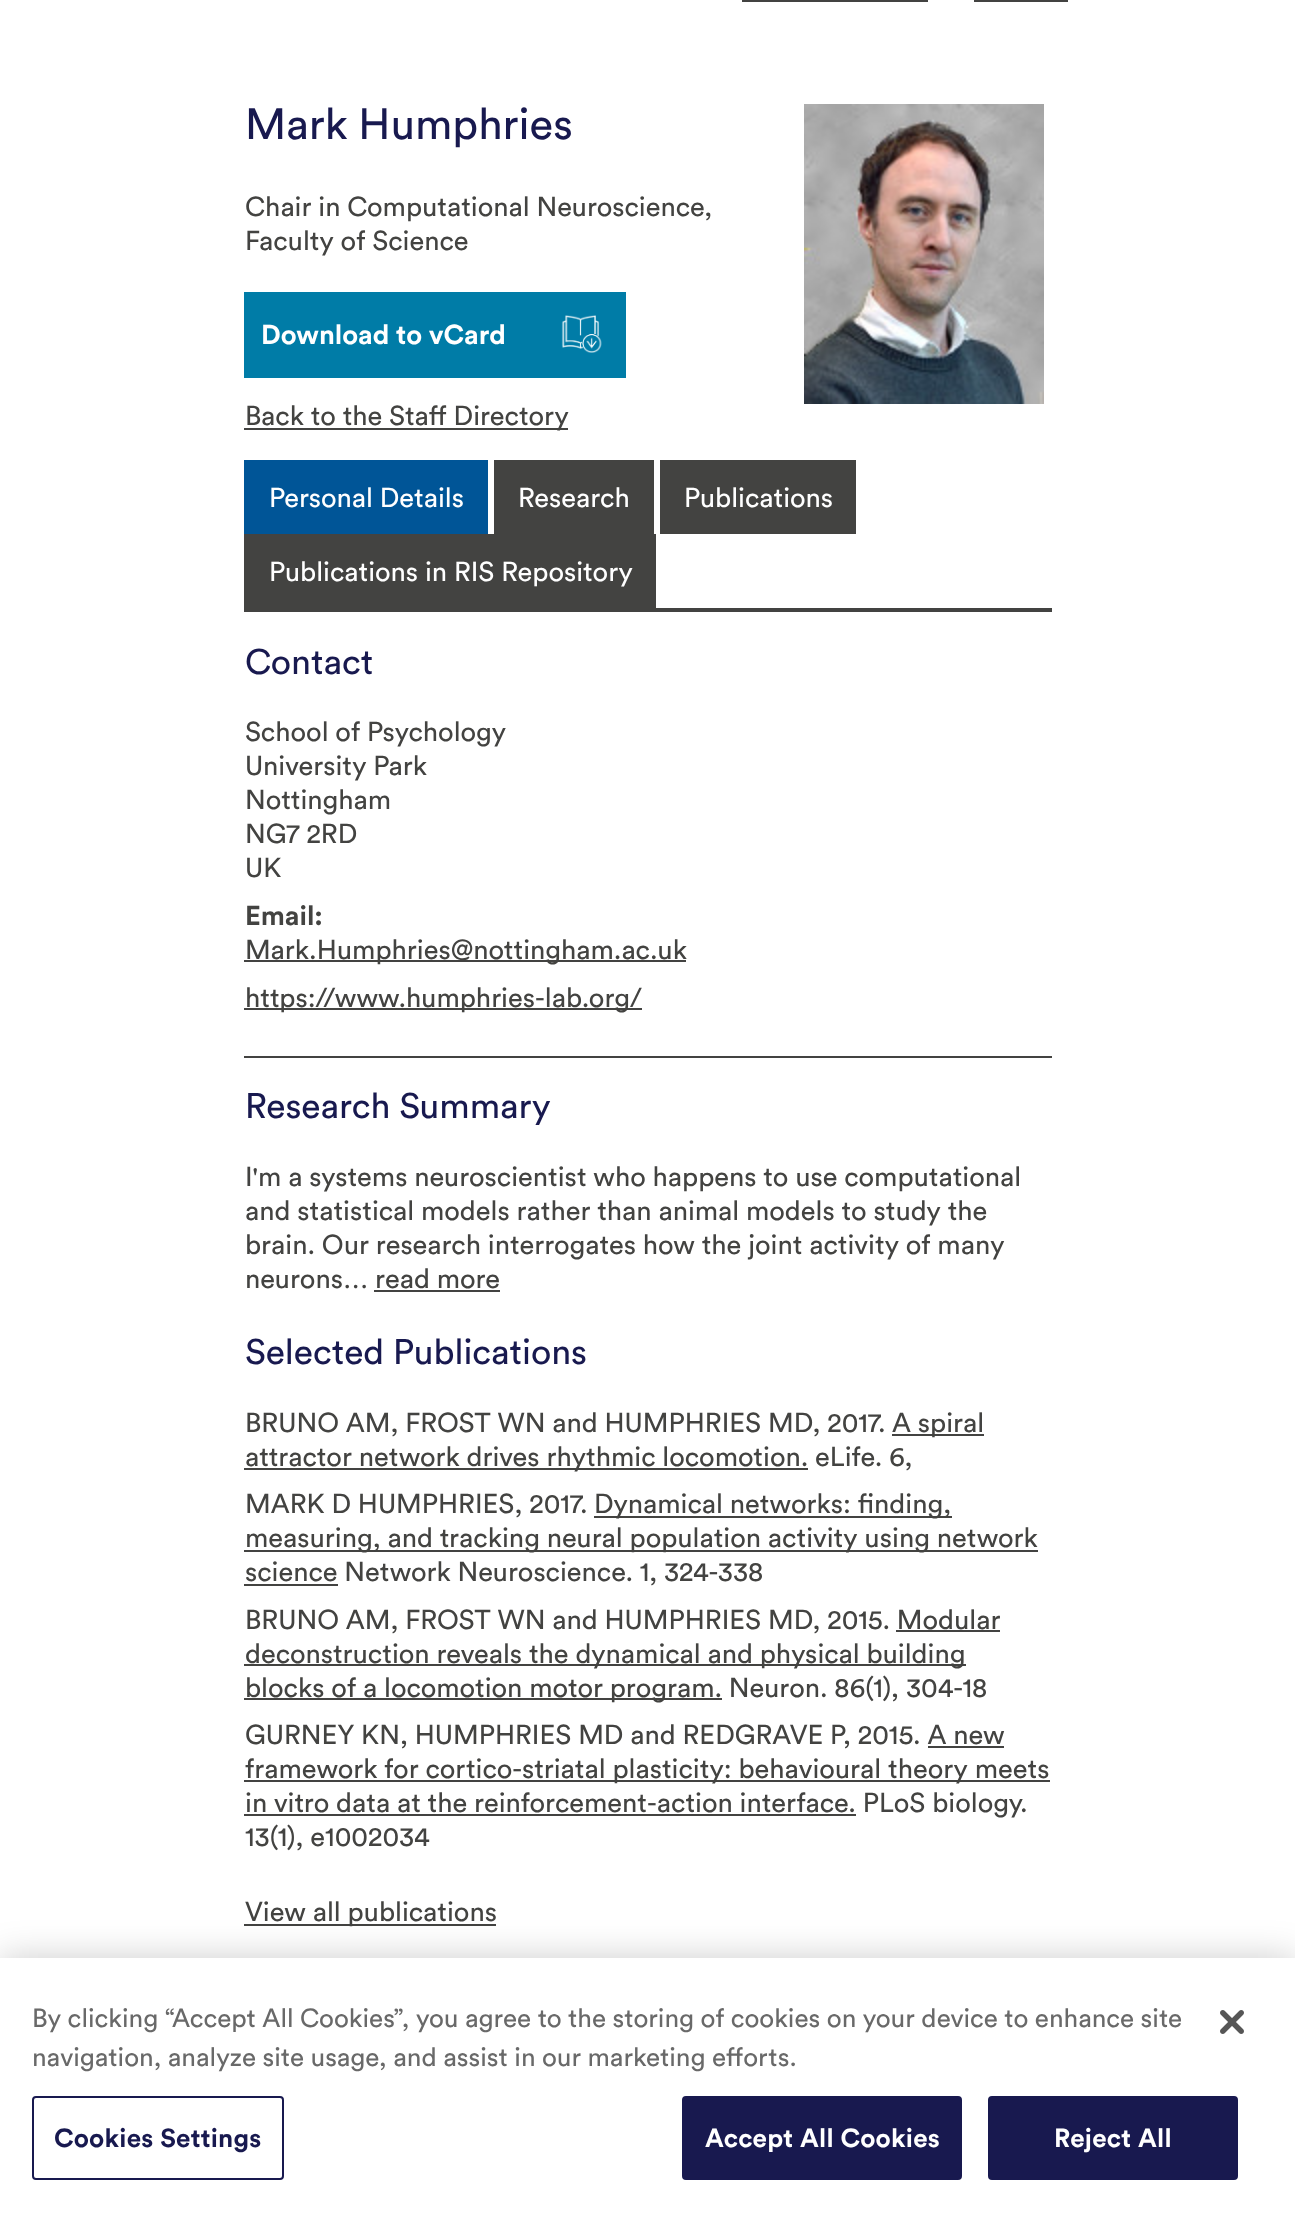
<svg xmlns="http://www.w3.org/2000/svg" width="1295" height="2219">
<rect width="100%" height="100%" fill="#fff"/>
<rect x="742" width="186" height="2" fill="#434341"/>
<rect x="974" width="94" height="2" fill="#434341"/>
<text x="245" y="139" style="font-family:Circular;font-size:43.5px;fill:#18194f">Mark Humphries</text>
<image x="804" y="104" width="240" height="300" href="media/1.png"/>
<text x="245" y="216" style="font-family:Circular;font-size:27.2px;fill:#434341">Chair in Computational Neuroscience,</text>
<text x="245" y="250" style="font-family:Circular;font-size:27.2px;fill:#434341">Faculty of Science</text>
<rect x="244" y="292" width="382" height="86" fill="#007ca7"/>
<image x="561" y="315" width="41" height="38" href="media/2.png"/>
<text x="261" y="344" style="font-family:Circular;font-size:27.2px;font-weight:bold;fill:#fff">Download to vCard</text>
<rect x="244" y="428" width="324" height="2" fill="#434341"/>
<text x="245" y="425" style="font-family:Circular;font-size:27.2px;fill:#434341">Back to the Staff Directory</text>
<rect x="244" y="608" width="808" height="4" fill="#434341"/>
<rect x="244" y="460" width="244" height="74" fill="#005597"/>
<text x="269" y="507" style="font-family:Circular;font-size:27.2px;fill:#fff">Personal Details</text>
<rect x="494" y="460" width="160" height="74" fill="#434341"/>
<text x="518" y="507" style="font-family:Circular;font-size:27.2px;fill:#fff">Research</text>
<rect x="660" y="460" width="196" height="74" fill="#434341"/>
<text x="684" y="507" style="font-family:Circular;font-size:27.2px;fill:#fff">Publications</text>
<rect x="244" y="534" width="412" height="74" fill="#434341"/>
<text x="269" y="581" style="font-family:Circular;font-size:27.2px;fill:#fff">Publications in RIS Repository</text>
<text x="245" y="674" style="font-family:Circular;font-size:35.4px;fill:#18194f">Contact</text>
<rect x="244" y="1056" width="808" height="2" fill="#434341"/>
<text x="245" y="741" style="font-family:Circular;font-size:27.2px;fill:#434341">School of Psychology</text>
<text x="245" y="775" style="font-family:Circular;font-size:27.2px;fill:#434341">University Park</text>
<text x="245" y="809" style="font-family:Circular;font-size:27.2px;fill:#434341">Nottingham</text>
<text x="245" y="843" style="font-family:Circular;font-size:27.2px;fill:#434341">NG7 2RD</text>
<text x="245" y="877" style="font-family:Circular;font-size:27.2px;fill:#434341">UK</text>
<text x="245" y="925" style="font-family:Circular;font-size:27.2px;font-weight:bold;fill:#434341">Email:</text>
<rect x="244" y="960" width="442" height="2" fill="#434341"/>
<text x="245" y="959" style="font-family:Circular;font-size:27.2px;fill:#434341">Mark.Humphries@nottingham.ac.uk</text>
<rect x="244" y="1008" width="398" height="2" fill="#434341"/>
<text x="245" y="1007" style="font-family:Circular;font-size:27.2px;fill:#434341">https://www.humphries-lab.org/</text>
<text x="245" y="1118" style="font-family:Circular;font-size:35.4px;fill:#18194f">Research Summary</text>
<text x="245" y="1186" style="font-family:Circular;font-size:27.2px;fill:#434341">I'm a systems neuroscientist who happens to use computational</text>
<text x="245" y="1220" style="font-family:Circular;font-size:27.2px;fill:#434341">and statistical models rather than animal models to study the</text>
<text x="245" y="1254" style="font-family:Circular;font-size:27.2px;fill:#434341">brain. Our research interrogates how the joint activity of many</text>
<text x="245" y="1288" style="font-family:Circular;font-size:27.2px;fill:#434341">neurons… read more</text>
<rect x="374" y="1290" width="126" height="2" fill="#434341"/>
<text x="245" y="1364" style="font-family:Circular;font-size:35.4px;fill:#18194f">Selected Publications</text>
<text x="245" y="1432" style="font-family:Circular;font-size:27.2px;fill:#434341">BRUNO AM, FROST WN and HUMPHRIES MD, 2017.</text>
<rect x="892" y="1434" width="92" height="2" fill="#434341"/>
<text x="892" y="1432" style="font-family:Circular;font-size:27.2px;fill:#434341">A spiral</text>
<rect x="244" y="1468" width="564" height="2" fill="#434341"/>
<text x="245" y="1466" style="font-family:Circular;font-size:27.2px;fill:#434341">attractor network drives rhythmic locomotion. eLife. 6,</text>
<text x="245" y="1513" style="font-family:Circular;font-size:27.2px;fill:#434341">MARK D HUMPHRIES, 2017.</text>
<rect x="594" y="1516" width="358" height="2" fill="#434341"/>
<text x="594" y="1513" style="font-family:Circular;font-size:27.2px;fill:#434341">Dynamical networks: finding,</text>
<rect x="244" y="1550" width="794" height="2" fill="#434341"/>
<text x="245" y="1547" style="font-family:Circular;font-size:27.2px;fill:#434341">measuring, and tracking neural population activity using network</text>
<rect x="244" y="1584" width="94" height="2" fill="#434341"/>
<text x="245" y="1581" style="font-family:Circular;font-size:27.2px;fill:#434341">science Network Neuroscience. 1, 324-338</text>
<text x="245" y="1629" style="font-family:Circular;font-size:27.2px;fill:#434341">BRUNO AM, FROST WN and HUMPHRIES MD, 2015. Modular</text>
<rect x="244" y="1664" width="722" height="2" fill="#434341"/>
<text x="245" y="1663" style="font-family:Circular;font-size:27.2px;fill:#434341">deconstruction reveals the dynamical and physical building</text>
<rect x="896" y="1630" width="104" height="2" fill="#434341"/>
<rect x="244" y="1698" width="478" height="2" fill="#434341"/>
<text x="245" y="1697" style="font-family:Circular;font-size:27.2px;fill:#434341">blocks of a locomotion motor program. Neuron. 86(1), 304-18</text>
<text x="245" y="1744" style="font-family:Circular;font-size:27.2px;fill:#434341">GURNEY KN, HUMPHRIES MD and REDGRAVE P, 2015. A new</text>
<rect x="244" y="1780" width="806" height="2" fill="#434341"/>
<text x="245" y="1778" style="font-family:Circular;font-size:27.2px;fill:#434341">framework for cortico-striatal plasticity: behavioural theory meets</text>
<rect x="928" y="1746" width="76" height="2" fill="#434341"/>
<rect x="244" y="1814" width="612" height="2" fill="#434341"/>
<text x="245" y="1812" style="font-family:Circular;font-size:27.2px;fill:#434341">in vitro data at the reinforcement-action interface. PLoS biology.</text>
<text x="245" y="1846" style="font-family:Circular;font-size:27.2px;fill:#434341">13(1), e1002034</text>
<rect x="244" y="1924" width="252" height="2" fill="#434341"/>
<text x="245" y="1921" style="font-family:Circular;font-size:27.2px;fill:#434341">View all publications</text>
<rect y="1958" width="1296" height="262" fill="#00000033" filter="blur(18px)"/>
<rect y="1958" width="1295" height="261" fill="#fff"/>
<text x="32" y="2027" style="font-family:Circular;font-size:26px;fill:#696969">By clicking “Accept All Cookies”, you agree to the storing of cookies on your device to enhance site</text>
<text x="32" y="2066" style="font-family:Circular;font-size:26px;fill:#696969">navigation, analyze site usage, and assist in our marketing efforts.</text>
<rect x="33" y="2097" width="250" height="82" rx="3" fill="none" stroke="#18194f" stroke-width="2"/>
<text x="54" y="2147" style="font-family:Circular;font-size:26px;font-weight:bold;letter-spacing:0.25px;fill:#18194f">Cookies Settings</text>
<rect x="683" y="2097" width="278" height="82" rx="3" fill="#18194f" stroke="#18194f" stroke-width="2"/>
<text x="705" y="2147" style="font-family:Circular;font-size:26px;font-weight:bold;letter-spacing:0.25px;fill:#fff">Accept All Cookies</text>
<rect x="989" y="2097" width="248" height="82" rx="3" fill="#18194f" stroke="#18194f" stroke-width="2"/>
<text x="1054" y="2147" style="font-family:Circular;font-size:26px;font-weight:bold;letter-spacing:0.25px;fill:#fff">Reject All</text>
<image x="1220" y="2010" width="24" height="24" href="media/3.png"/>
</svg>
